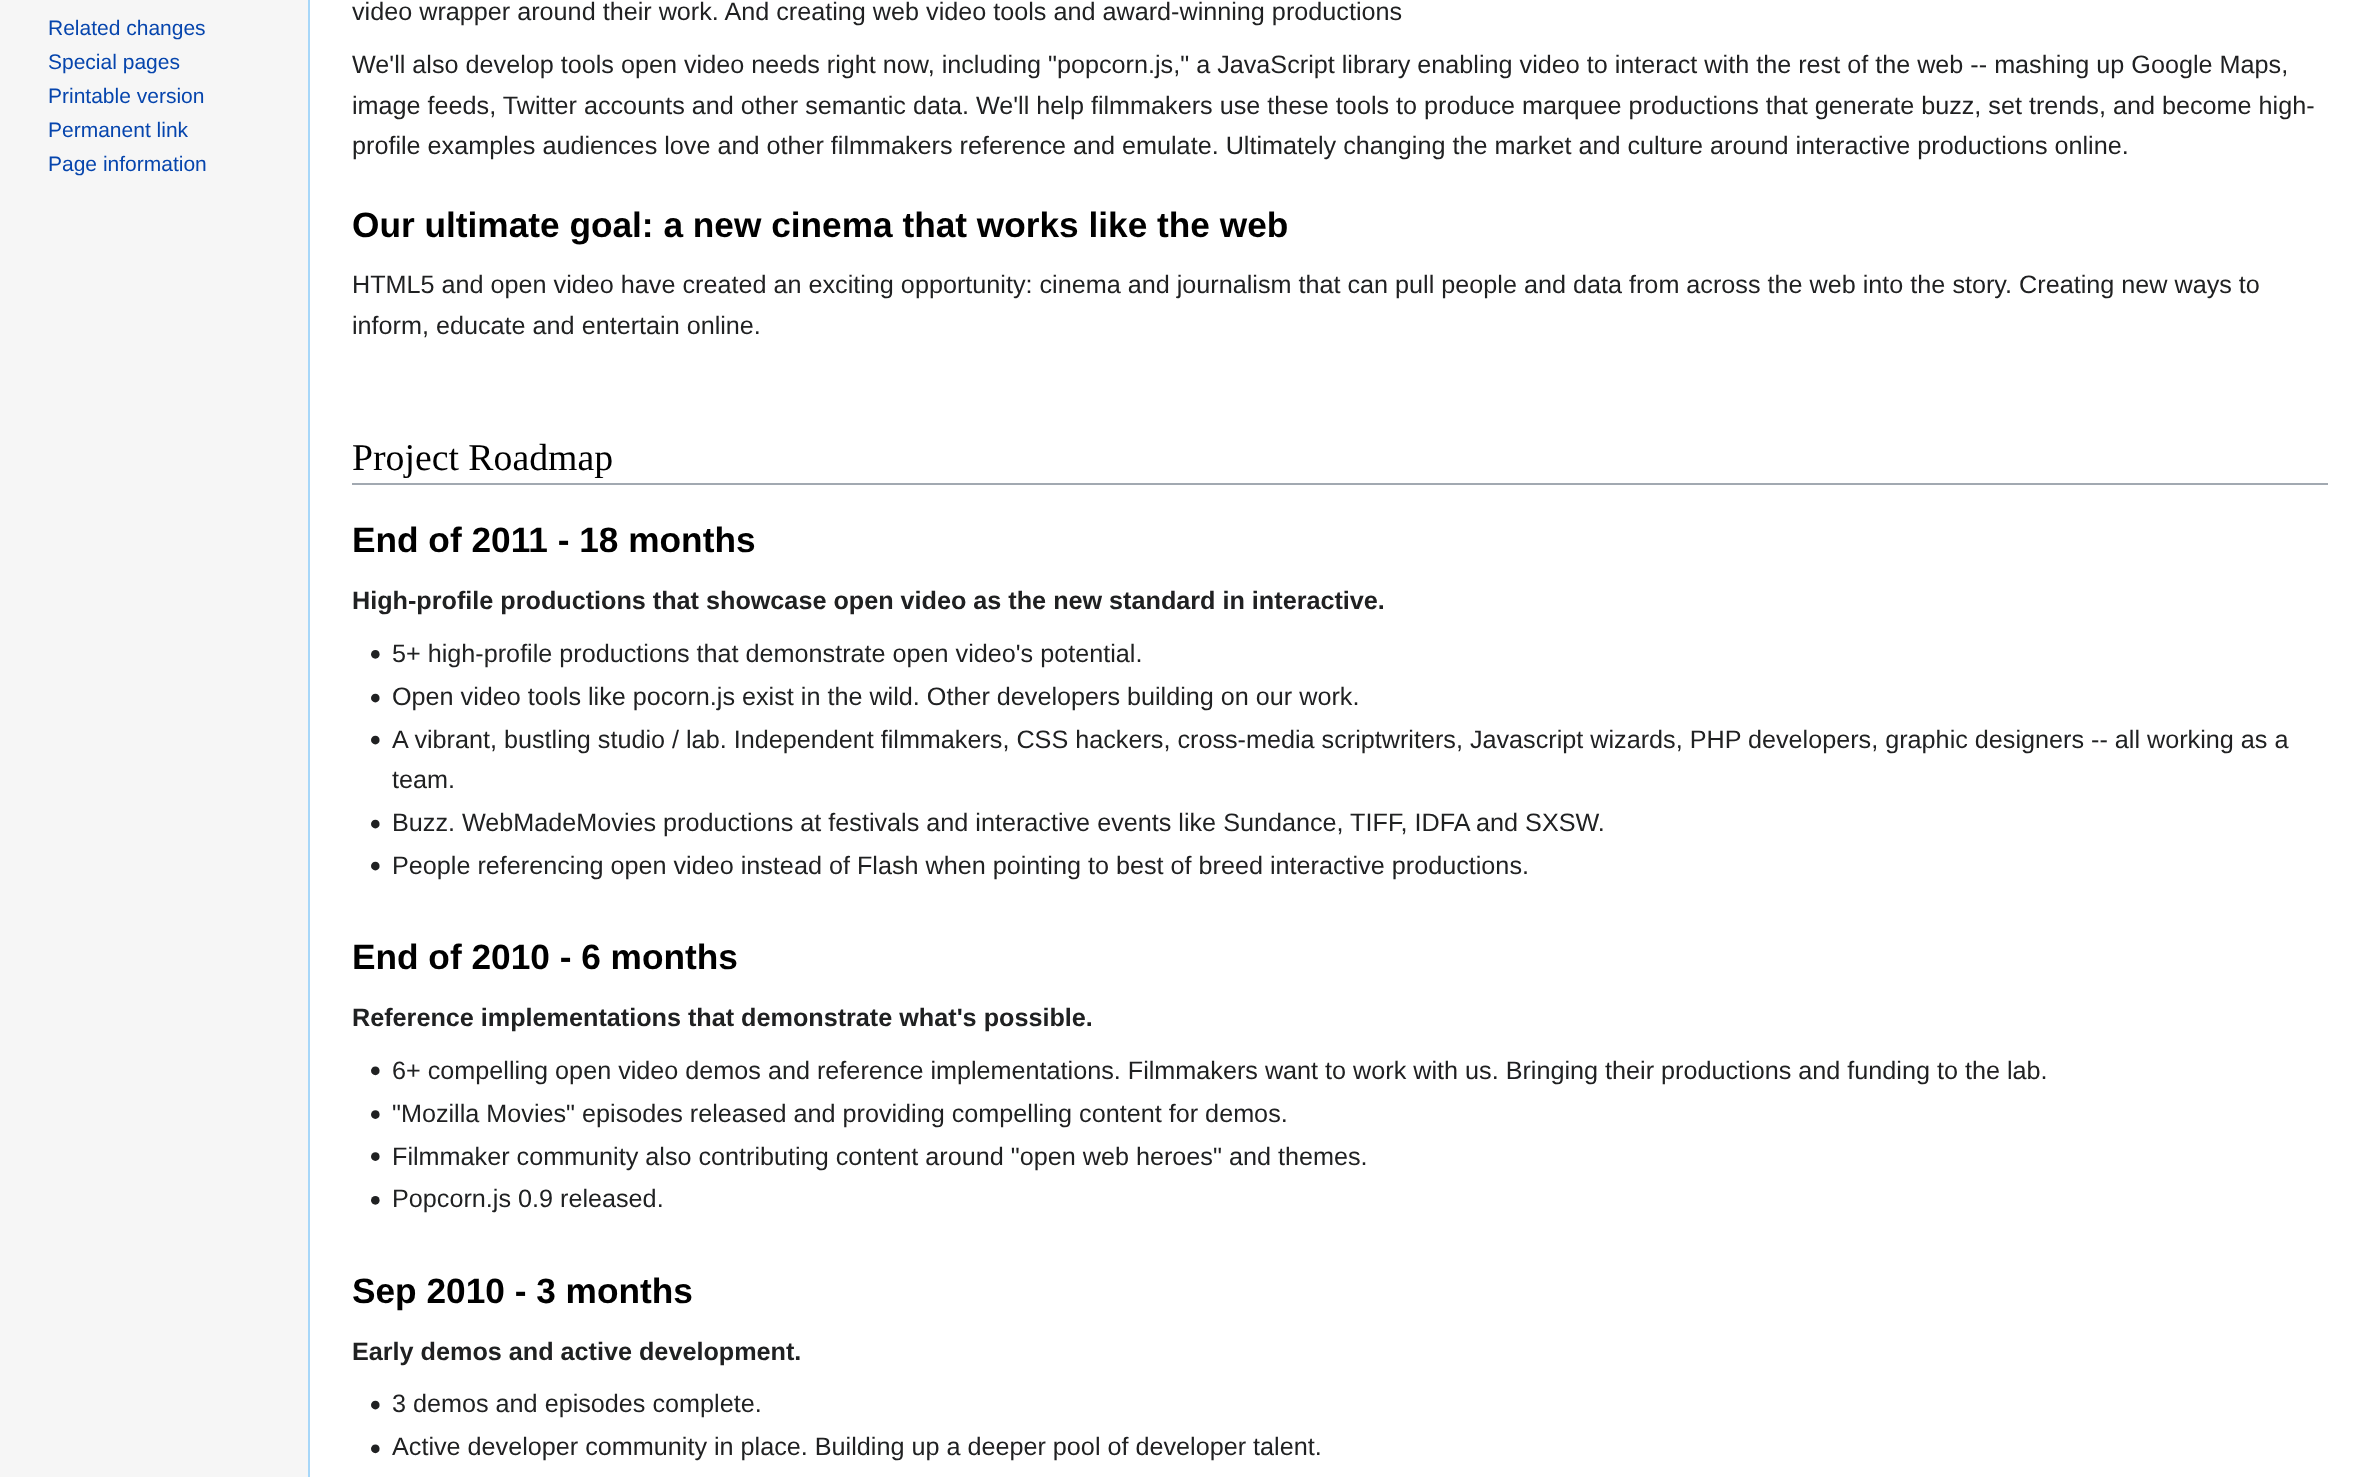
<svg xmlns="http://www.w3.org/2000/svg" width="2368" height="1477">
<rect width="100%" height="100%" fill="#f6f6f6"/>
<text x="48" y="35" style="font-family:Liberation Sans;font-size:21px;fill:#0645ad">Related changes</text>
<text x="48" y="69" style="font-family:Liberation Sans;font-size:21px;fill:#0645ad">Special pages</text>
<text x="48" y="103" style="font-family:Liberation Sans;font-size:21px;fill:#0645ad">Printable version</text>
<text x="48" y="137" style="font-family:Liberation Sans;font-size:21px;fill:#0645ad">Permanent link</text>
<text x="48" y="171" style="font-family:Liberation Sans;font-size:21px;fill:#0645ad">Page information</text>
<rect x="310" width="2058" height="1477" fill="#fff"/>
<rect x="308" width="2" height="1477" fill="#a7d7f9"/>
<text x="352" y="20" style="font-family:Liberation Sans;font-size:25.2px;fill:#202122">video wrapper around their work. And creating web video tools and award-winning productions</text>
<text x="352" y="73" style="font-family:Liberation Sans;font-size:25.2px;fill:#202122">We'll also develop tools open video needs right now, including "popcorn.js," a JavaScript library enabling video to interact with the rest of the web -- mashing up Google Maps,</text>
<text x="352" y="114" style="font-family:Liberation Sans;font-size:25.2px;fill:#202122">image feeds, Twitter accounts and other semantic data. We'll help filmmakers use these tools to produce marquee productions that generate buzz, set trends, and become high-</text>
<text x="352" y="154" style="font-family:Liberation Sans;font-size:25.2px;fill:#202122">profile examples audiences love and other filmmakers reference and emulate. Ultimately changing the market and culture around interactive productions online.</text>
<text x="352" y="237" style="font-family:Liberation Sans;font-size:35.25px;font-weight:bold;fill:#000">Our ultimate goal: a new cinema that works like the web</text>
<text x="352" y="293" style="font-family:Liberation Sans;font-size:25.2px;fill:#202122">HTML5 and open video have created an exciting opportunity: cinema and journalism that can pull people and data from across the web into the story. Creating new ways to</text>
<text x="352" y="334" style="font-family:Liberation Sans;font-size:25.2px;fill:#202122">inform, educate and entertain online.</text>
<rect x="352" y="483" width="1976" height="2" fill="#a2a9b1"/>
<text x="352" y="470" style="font-family:Liberation Serif;font-size:37.75px;fill:#000">Project Roadmap</text>
<text x="352" y="552" style="font-family:Liberation Sans;font-size:35.25px;font-weight:bold;fill:#000">End of 2011 - 18 months</text>
<text x="352" y="609" style="font-family:Liberation Sans;font-size:25.2px;font-weight:bold;fill:#202122">High-profile productions that showcase open video as the new standard in interactive.</text>
<image x="371" y="650" width="9" height="9" href="media/1.png"/>
<text x="392" y="662" style="font-family:Liberation Sans;font-size:25.2px;fill:#202122">5+ high-profile productions that demonstrate open video's potential.</text>
<image x="371" y="693" width="9" height="10" href="media/2.png"/>
<text x="392" y="705" style="font-family:Liberation Sans;font-size:25.2px;fill:#202122">Open video tools like pocorn.js exist in the wild. Other developers building on our work.</text>
<image x="371" y="735" width="9" height="10" href="media/2.png"/>
<text x="392" y="748" style="font-family:Liberation Sans;font-size:25.2px;fill:#202122">A vibrant, bustling studio / lab. Independent filmmakers, CSS hackers, cross-media scriptwriters, Javascript wizards, PHP developers, graphic designers -- all working as a</text>
<text x="392" y="788" style="font-family:Liberation Sans;font-size:25.2px;fill:#202122">team.</text>
<image x="371" y="819" width="9" height="10" href="media/2.png"/>
<text x="392" y="831" style="font-family:Liberation Sans;font-size:25.2px;fill:#202122">Buzz. WebMadeMovies productions at festivals and interactive events like Sundance, TIFF, IDFA and SXSW.</text>
<image x="371" y="861" width="9" height="10" href="media/2.png"/>
<text x="392" y="874" style="font-family:Liberation Sans;font-size:25.2px;fill:#202122">People referencing open video instead of Flash when pointing to best of breed interactive productions.</text>
<text x="352" y="969" style="font-family:Liberation Sans;font-size:35.25px;font-weight:bold;fill:#000">End of 2010 - 6 months</text>
<text x="352" y="1026" style="font-family:Liberation Sans;font-size:25.2px;font-weight:bold;fill:#202122">Reference implementations that demonstrate what's possible.</text>
<image x="371" y="1066" width="9" height="10" href="media/3.png"/>
<text x="392" y="1079" style="font-family:Liberation Sans;font-size:25.2px;fill:#202122">6+ compelling open video demos and reference implementations. Filmmakers want to work with us. Bringing their productions and funding to the lab.</text>
<image x="371" y="1110" width="9" height="9" href="media/4.png"/>
<text x="392" y="1122" style="font-family:Liberation Sans;font-size:25.2px;fill:#202122">"Mozilla Movies" episodes released and providing compelling content for demos.</text>
<image x="371" y="1152" width="9" height="9" href="media/4.png"/>
<text x="392" y="1165" style="font-family:Liberation Sans;font-size:25.2px;fill:#202122">Filmmaker community also contributing content around "open web heroes" and themes.</text>
<image x="371" y="1196" width="9" height="9" href="media/5.png"/>
<text x="392" y="1207" style="font-family:Liberation Sans;font-size:25.2px;fill:#202122">Popcorn.js 0.9 released.</text>
<text x="352" y="1303" style="font-family:Liberation Sans;font-size:35.25px;font-weight:bold;fill:#000">Sep 2010 - 3 months</text>
<text x="352" y="1360" style="font-family:Liberation Sans;font-size:25.2px;font-weight:bold;fill:#202122">Early demos and active development.</text>
<image x="371" y="1400" width="9" height="10" href="media/2.png"/>
<text x="392" y="1412" style="font-family:Liberation Sans;font-size:25.2px;fill:#202122">3 demos and episodes complete.</text>
<image x="371" y="1444" width="9" height="10" href="media/3.png"/>
<text x="392" y="1455" style="font-family:Liberation Sans;font-size:25.2px;fill:#202122">Active developer community in place. Building up a deeper pool of developer talent.</text>
</svg>
